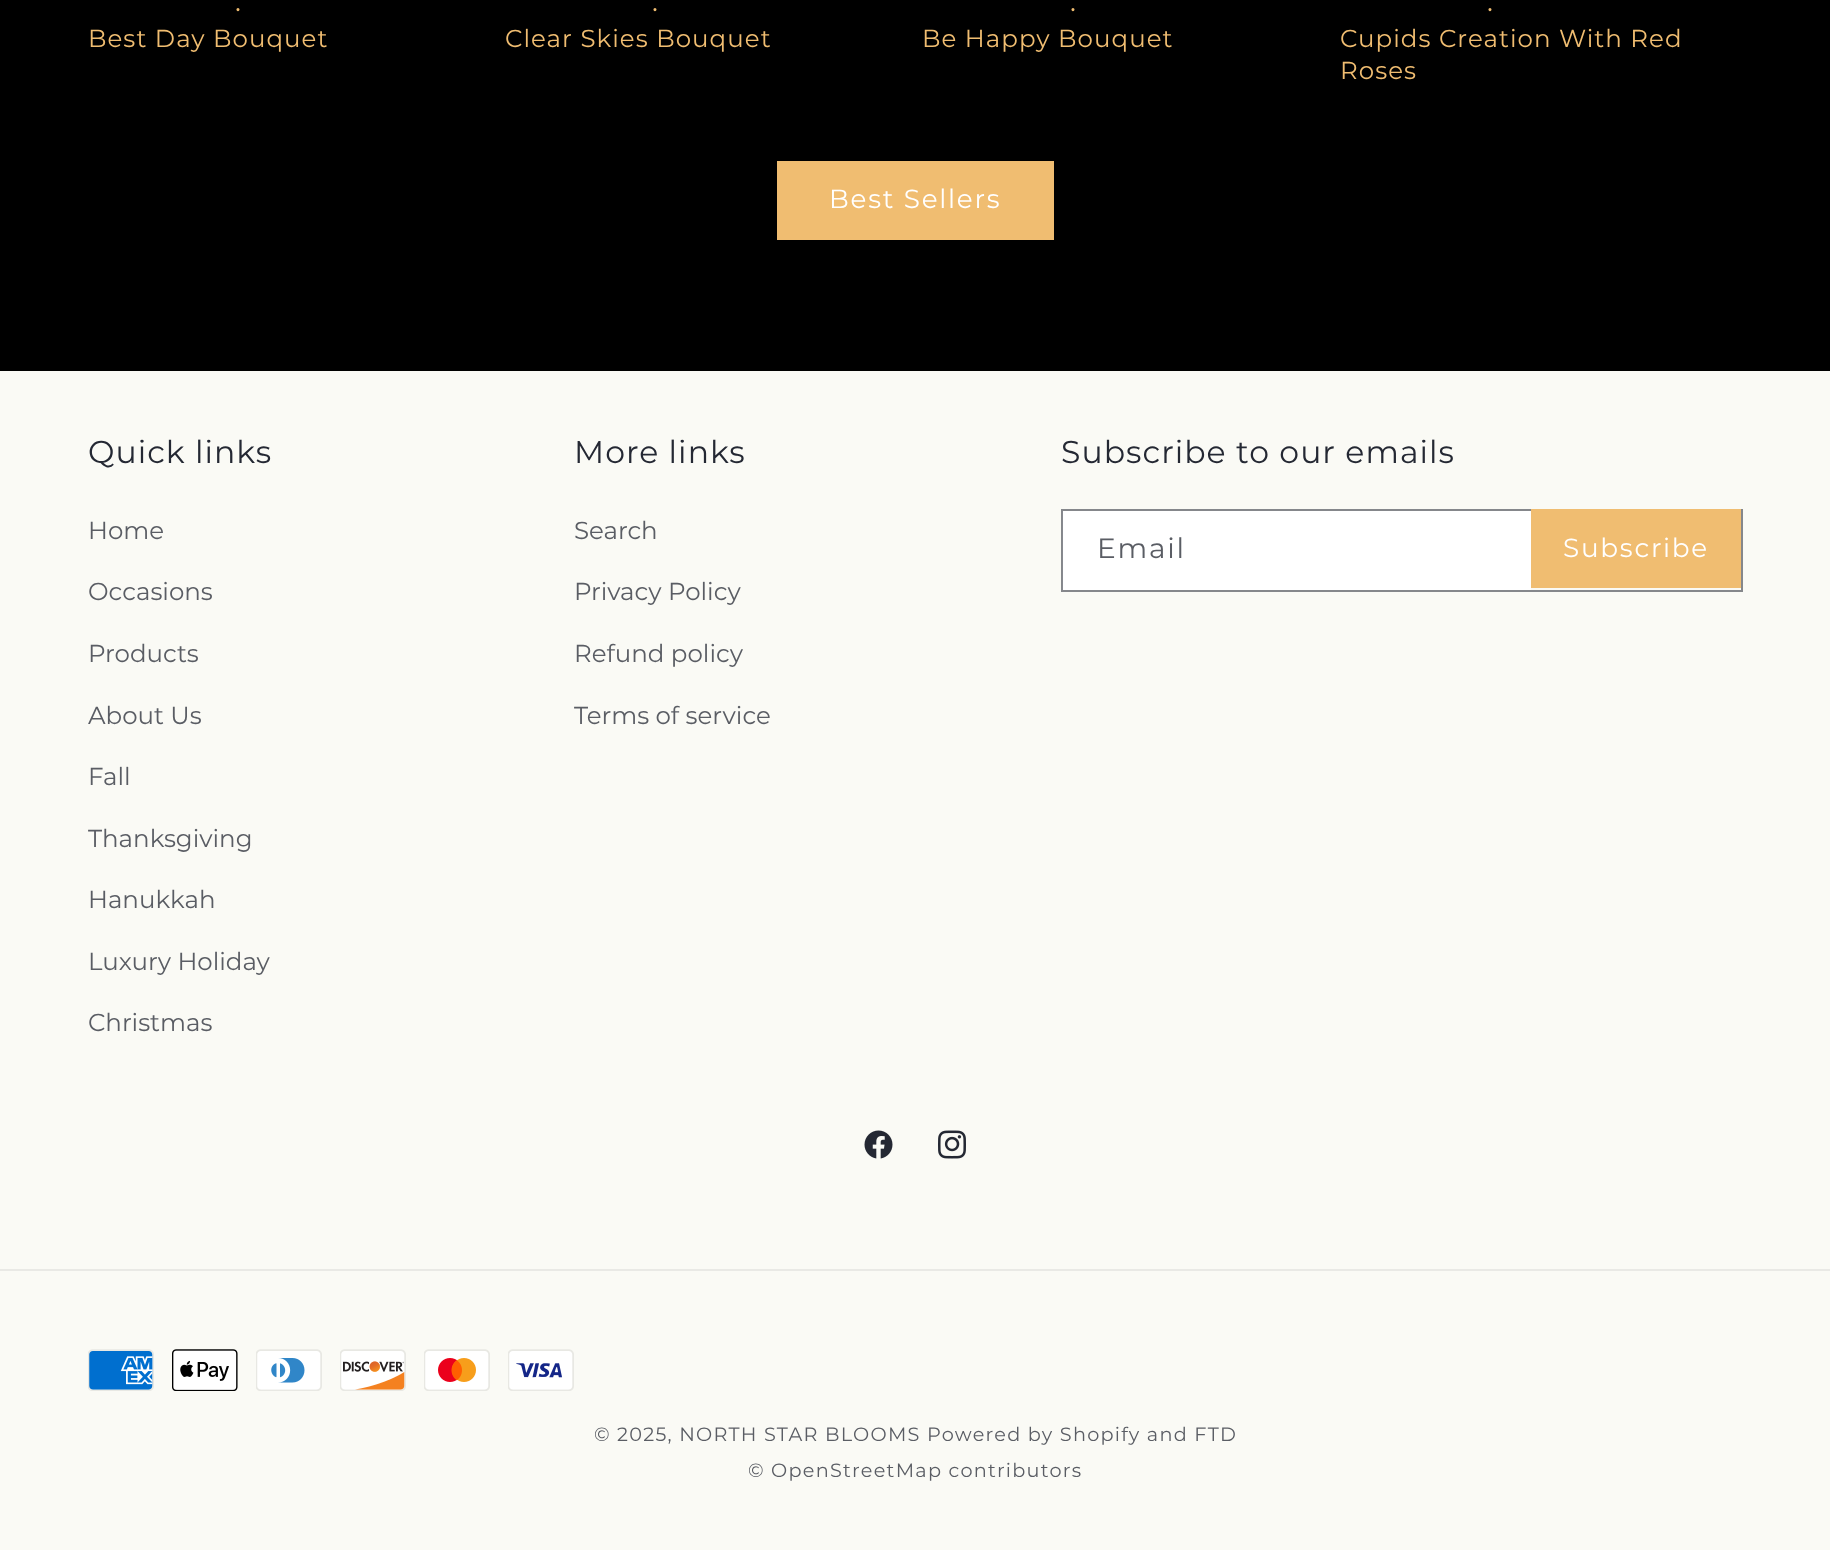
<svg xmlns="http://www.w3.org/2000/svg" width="1830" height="1550">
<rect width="100%" height="100%" fill="#000"/>
<text x="235" y="11" style="font-family:Montserrat;font-size:28px;letter-spacing:1.75px;fill:#f0bd71">.</text>
<text x="88" y="47" style="font-family:Montserrat;font-size:24.5px;letter-spacing:1.05px;fill:#f0bd71">Best Day Bouquet</text>
<text x="652" y="11" style="font-family:Montserrat;font-size:28px;letter-spacing:1.75px;fill:#f0bd71">.</text>
<text x="505" y="47" style="font-family:Montserrat;font-size:24.5px;letter-spacing:1.05px;fill:#f0bd71">Clear Skies Bouquet</text>
<text x="1070" y="11" style="font-family:Montserrat;font-size:28px;letter-spacing:1.75px;fill:#f0bd71">.</text>
<text x="922" y="47" style="font-family:Montserrat;font-size:24.5px;letter-spacing:1.05px;fill:#f0bd71">Be Happy Bouquet</text>
<text x="1487" y="11" style="font-family:Montserrat;font-size:28px;letter-spacing:1.75px;fill:#f0bd71">.</text>
<text x="1340" y="47" style="font-family:Montserrat;font-size:24.5px;letter-spacing:1.05px;fill:#f0bd71">Cupids Creation With Red</text>
<text x="1340" y="79" style="font-family:Montserrat;font-size:24.5px;letter-spacing:1.05px;fill:#f0bd71">Roses</text>
<rect x="777" y="161" width="277" height="79" fill="#f0bd71"/>
<text x="829" y="208" style="font-family:Montserrat;font-size:26.25px;letter-spacing:1.75px;fill:#fff">Best Sellers</text>
<rect y="371" width="1830" height="1179" fill="#fafaf5"/>
<text x="88" y="463" style="font-family:Montserrat;font-size:31.5px;letter-spacing:1.05px;fill:#242833">Quick links</text>
<text x="88" y="539" style="font-family:Montserrat;font-size:24.5px;fill:#5a5d64">Home</text>
<text x="88" y="600" style="font-family:Montserrat;font-size:24.5px;fill:#5a5d64">Occasions</text>
<text x="88" y="662" style="font-family:Montserrat;font-size:24.5px;fill:#5a5d64">Products</text>
<text x="88" y="724" style="font-family:Montserrat;font-size:24.5px;fill:#5a5d64">About Us</text>
<text x="88" y="785" style="font-family:Montserrat;font-size:24.5px;fill:#5a5d64">Fall</text>
<text x="88" y="847" style="font-family:Montserrat;font-size:24.5px;fill:#5a5d64">Thanksgiving</text>
<text x="88" y="908" style="font-family:Montserrat;font-size:24.5px;fill:#5a5d64">Hanukkah</text>
<text x="88" y="970" style="font-family:Montserrat;font-size:24.5px;fill:#5a5d64">Luxury Holiday</text>
<text x="88" y="1031" style="font-family:Montserrat;font-size:24.5px;fill:#5a5d64">Christmas</text>
<text x="574" y="463" style="font-family:Montserrat;font-size:31.5px;letter-spacing:1.05px;fill:#242833">More links</text>
<text x="574" y="539" style="font-family:Montserrat;font-size:24.5px;fill:#5a5d64">Search</text>
<text x="574" y="600" style="font-family:Montserrat;font-size:24.5px;fill:#5a5d64">Privacy Policy</text>
<text x="574" y="662" style="font-family:Montserrat;font-size:24.5px;fill:#5a5d64">Refund policy</text>
<text x="574" y="724" style="font-family:Montserrat;font-size:24.5px;fill:#5a5d64">Terms of service</text>
<text x="1061" y="463" style="font-family:Montserrat;font-size:31.5px;letter-spacing:1.05px;fill:#242833">Subscribe to our emails</text>
<rect x="1062" y="511" width="469" height="79" fill="#fff"/>
<rect x="1062" y="510" width="680" height="81" fill="none" stroke="#2428338c" stroke-width="2"/>
<text x="1097" y="558" style="font-family:Montserrat;font-size:28px;letter-spacing:1.75px;fill:#5a5d64">Email</text>
<rect x="1531" y="509" width="210" height="79" fill="#f0bd71"/>
<text x="1563" y="557" style="font-family:Montserrat;font-size:26.25px;letter-spacing:1.75px;fill:#fff">Subscribe</text>
<image x="864" y="1130" width="29" height="29" href="media/1.png"/>
<image x="938" y="1130" width="28" height="29" href="media/2.png"/>
<rect y="1269" width="1830" height="2" fill="#e9e9e5"/>
<image x="88" y="1349" width="66" height="42" href="media/3.png"/>
<image x="172" y="1349" width="66" height="42" href="media/4.png"/>
<image x="256" y="1349" width="66" height="42" href="media/5.png"/>
<image x="340" y="1349" width="66" height="42" href="media/6.png"/>
<image x="424" y="1349" width="66" height="42" href="media/7.png"/>
<image x="508" y="1349" width="66" height="42" href="media/8.png"/>
<text x="594" y="1441" style="font-family:Montserrat;font-size:19.25px;letter-spacing:1.25px;fill:#5a5d64">© 2025, NORTH STAR BLOOMS</text>
<text x="927" y="1441" style="font-family:Montserrat;font-size:19.25px;letter-spacing:1.25px;fill:#5a5d64">Powered by Shopify and FTD</text>
<text x="748" y="1477" style="font-family:Montserrat;font-size:19.25px;letter-spacing:1.25px;fill:#5a5d64">© OpenStreetMap contributors</text>
</svg>
